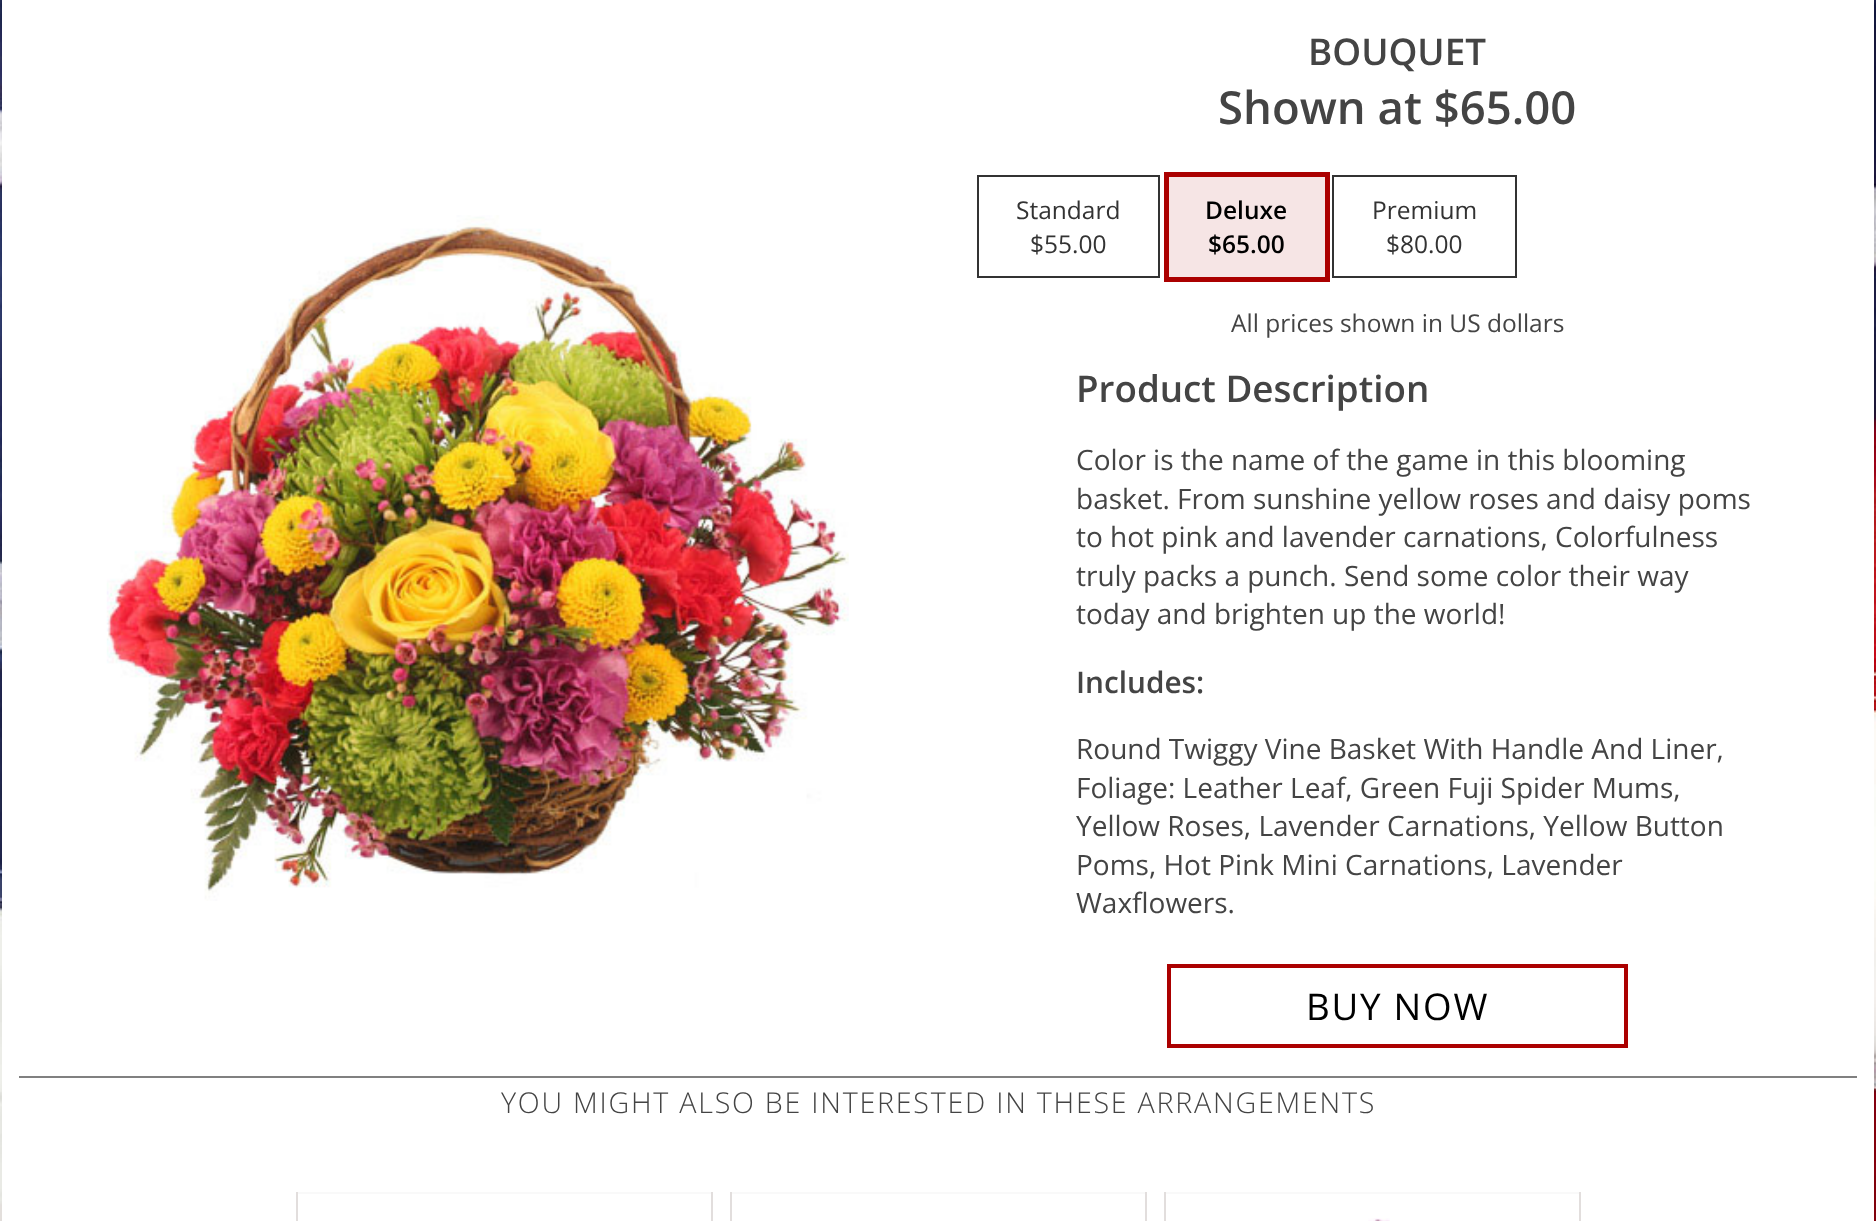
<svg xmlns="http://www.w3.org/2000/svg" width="1876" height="1221">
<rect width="100%" height="100%" fill="#fff"/>
<image x="0" y="0" width="1876" height="1221" href="media/1.png"/>
<rect x="2" width="1872" height="1221" fill="#fff"/>
<image x="106" y="215" width="743" height="686" href="media/2.png"/>
<text x="1308" y="65" style="font-family:Open Sans;font-size:36.75px;font-weight:600;fill:#444">BOUQUET</text>
<text x="1218" y="124" style="font-family:Open Sans;font-size:45.5px;font-weight:600;fill:#444">Shown at $65.00</text>
<rect x="978" y="176" width="181" height="101" fill="none" stroke="#333" stroke-width="2"/>
<text x="1016" y="219" style="font-family:Open Sans;font-size:24.5px;fill:#333">Standard</text>
<text x="1030" y="253" style="font-family:Open Sans;font-size:24.5px;fill:#333">$55.00</text>
<rect x="1166.5" y="174.5" width="161" height="105" fill="none" stroke="#ab0000" stroke-width="5"/>
<rect x="1169" y="177" width="156" height="100" fill="#f6e5e5"/>
<text x="1205" y="219" style="font-family:Open Sans;font-size:24.5px;font-weight:600;fill:#000">Deluxe</text>
<text x="1208" y="253" style="font-family:Open Sans;font-size:24.5px;font-weight:600;fill:#000">$65.00</text>
<rect x="1333" y="176" width="183" height="101" fill="none" stroke="#333" stroke-width="2"/>
<text x="1372" y="219" style="font-family:Open Sans;font-size:24.5px;fill:#333">Premium</text>
<text x="1386" y="253" style="font-family:Open Sans;font-size:24.5px;fill:#333">$80.00</text>
<text x="1231" y="332" style="font-family:Open Sans;font-size:24.5px;fill:#444">All prices shown in US dollars</text>
<text x="1076" y="402" style="font-family:Open Sans;font-size:36.75px;font-weight:600;fill:#444">Product Description</text>
<text x="1076" y="470" style="font-family:Open Sans;font-size:28px;fill:#444">Color is the name of the game in this blooming</text>
<text x="1076" y="509" style="font-family:Open Sans;font-size:28px;fill:#444">basket. From sunshine yellow roses and daisy poms</text>
<text x="1076" y="547" style="font-family:Open Sans;font-size:28px;fill:#444">to hot pink and lavender carnations, Colorfulness</text>
<text x="1076" y="586" style="font-family:Open Sans;font-size:28px;fill:#444">truly packs a punch. Send some color their way</text>
<text x="1076" y="624" style="font-family:Open Sans;font-size:28px;fill:#444">today and brighten up the world!</text>
<text x="1076" y="693" style="font-family:Open Sans;font-size:29.75px;font-weight:600;fill:#444">Includes:</text>
<text x="1076" y="759" style="font-family:Open Sans;font-size:28px;fill:#444">Round Twiggy Vine Basket With Handle And Liner,</text>
<text x="1076" y="798" style="font-family:Open Sans;font-size:28px;fill:#444">Foliage: Leather Leaf, Green Fuji Spider Mums,</text>
<text x="1076" y="836" style="font-family:Open Sans;font-size:28px;fill:#444">Yellow Roses, Lavender Carnations, Yellow Button</text>
<text x="1076" y="875" style="font-family:Open Sans;font-size:28px;fill:#444">Poms, Hot Pink Mini Carnations, Lavender</text>
<text x="1076" y="913" style="font-family:Open Sans;font-size:28px;fill:#444">Waxflowers.</text>
<rect x="1169" y="966" width="457" height="80" fill="none" stroke="#ab0000" stroke-width="4"/>
<text x="1306" y="1020" style="font-family:Open Sans;font-size:36.75px;letter-spacing:1.75px;fill:#000">BUY NOW</text>
<rect x="19" y="1076" width="1838" height="2" fill="#808080"/>
<text x="501" y="1113" style="font-family:Open Sans;font-size:28.65px;font-weight:300;letter-spacing:1.75px;fill:#444">YOU MIGHT ALSO BE INTERESTED IN THESE ARRANGEMENTS</text>
<rect x="296" y="1192" width="416" height="2" fill="#f9f9f9"/>
<rect x="711" y="1192" width="2" height="29" fill="#e2dedd"/>
<rect x="296" y="1192" width="2" height="29" fill="#e2dedd"/>
<rect x="730" y="1192" width="416" height="2" fill="#f9f9f9"/>
<rect x="1145" y="1192" width="2" height="29" fill="#e2dedd"/>
<rect x="730" y="1192" width="2" height="29" fill="#e2dedd"/>
<rect x="1164" y="1192" width="416" height="2" fill="#f9f9f9"/>
<rect x="1579" y="1192" width="2" height="29" fill="#e2dedd"/>
<rect x="1164" y="1192" width="2" height="29" fill="#e2dedd"/>
<image x="1368" y="1218" width="22" height="3" href="media/3.png"/>
</svg>
